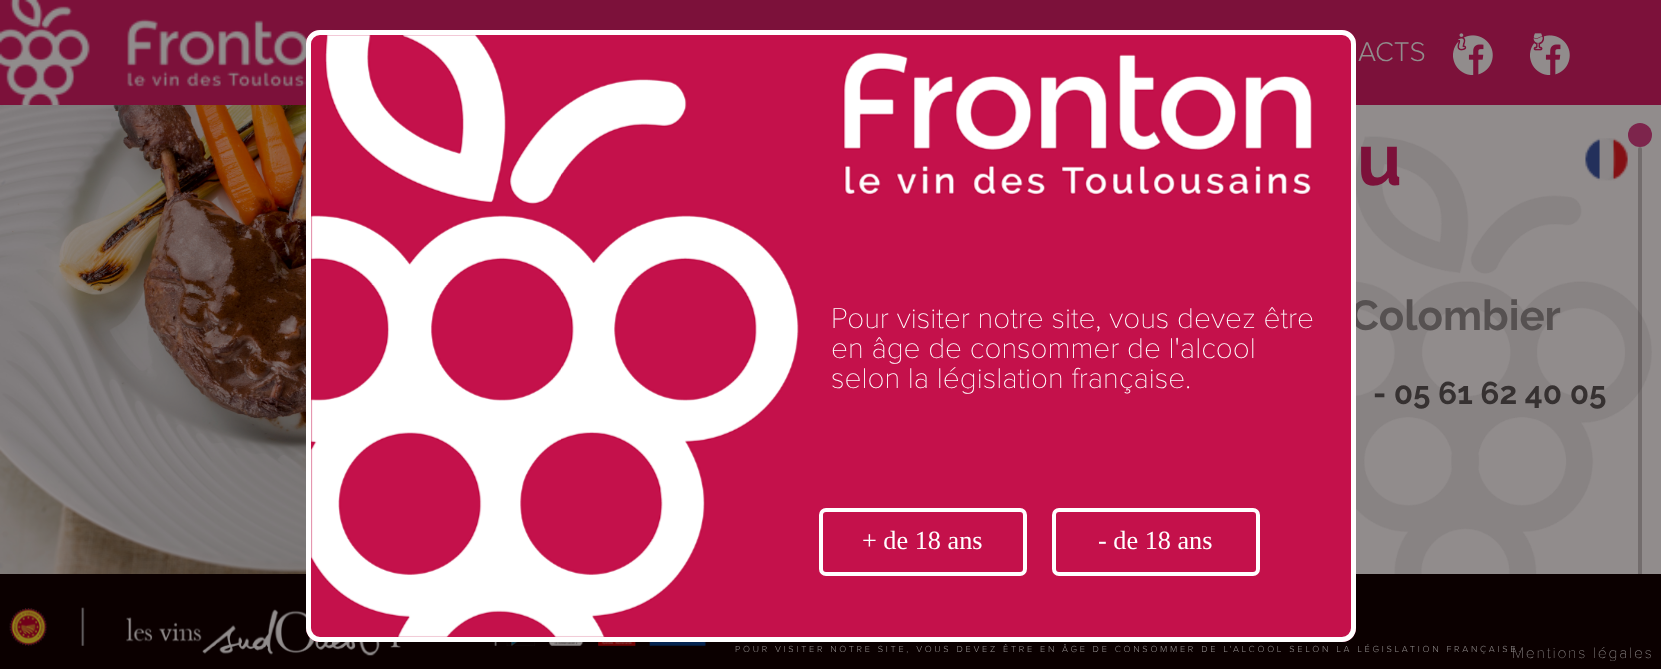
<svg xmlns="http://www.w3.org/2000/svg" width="1661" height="669">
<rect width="100%" height="100%" fill="#918c8c"/>
<rect width="1661" height="105" fill="#7c113a"/>
<image x="0" y="0" width="332" height="105" href="media/1.png"/>
<text x="1358" y="61" style="font-family:Proxima Nova;font-size:28px;font-weight:300;fill:#918c8c">ACTS</text>
<image x="1356" y="136" width="296" height="438" href="media/7.png"/>
<image x="1585" y="138" width="43" height="43" href="media/2.png"/>
<image x="1453" y="33" width="40" height="42" href="media/3.png"/>
<image x="1530" y="33" width="40" height="42" href="media/4.png"/>
<text x="1350" y="330" style="font-family:Raleway;font-size:42px;font-weight:bold;fill:#565151">Colombier</text>
<rect x="1638" y="147" width="4" height="502" rx="2" fill="#0b000038"/>
<rect y="574" width="1661" height="95" fill="#0b0000"/>
<image x="9" y="607" width="697" height="49" href="media/8.png"/>
<rect x="306" y="30" width="1050" height="612" rx="14" fill="#c4114b"/>
<image x="311" y="35" width="1001" height="602" href="media/5.png"/>
<rect x="308.5" y="32.5" width="1045" height="607" rx="11.5" fill="none" stroke="#fff" stroke-width="5"/>
<text x="831" y="328" style="font-family:Proxima Nova;font-size:29.75px;font-weight:100;fill:#fff">Pour visiter notre site, vous devez être</text>
<text x="831" y="358" style="font-family:Proxima Nova;font-size:29.75px;font-weight:100;fill:#fff">en âge de consommer de l'alcool</text>
<text x="831" y="388" style="font-family:Proxima Nova;font-size:29.75px;font-weight:100;fill:#fff">selon la législation française.</text>
<rect x="821" y="510" width="204" height="64" rx="5" fill="none" stroke="#fff" stroke-width="4"/>
<text x="862" y="549" style="font-family:Liberation Serif;font-size:26.25px;fill:#fff">+ de 18 ans</text>
<rect x="1054" y="510" width="204" height="64" rx="5" fill="none" stroke="#fff" stroke-width="4"/>
<text x="1098" y="549" style="font-family:Liberation Serif;font-size:26.25px;fill:#fff">- de 18 ans</text>
<image x="0" y="105" width="306" height="469" href="media/6.png"/>
<text x="1357" y="185" style="font-family:Raleway;font-size:73px;font-weight:bold;fill:#7c113a">u</text>
<text x="1373" y="404" style="font-family:Raleway;font-size:31.5px;font-weight:bold;fill:#363131">- 05 61 62 40 05</text>
<circle cx="1640" cy="135" r="12" fill="#7d254c"/>
<text x="735" y="652" style="font-family:Proxima Nova;font-size:9.15px;font-weight:300;letter-spacing:2.74px;fill:#918c8c">POUR VISITER NOTRE SITE, VOUS DEVEZ ÊTRE EN ÂGE DE CONSOMMER DE L'ALCOOL SELON LA LÉGISLATION FRANÇAISE.</text>
<text x="1512" y="658" style="font-family:Proxima Nova;font-size:15.75px;font-weight:100;letter-spacing:1.75px;fill:#918c8c">Mentions légales</text>
</svg>
